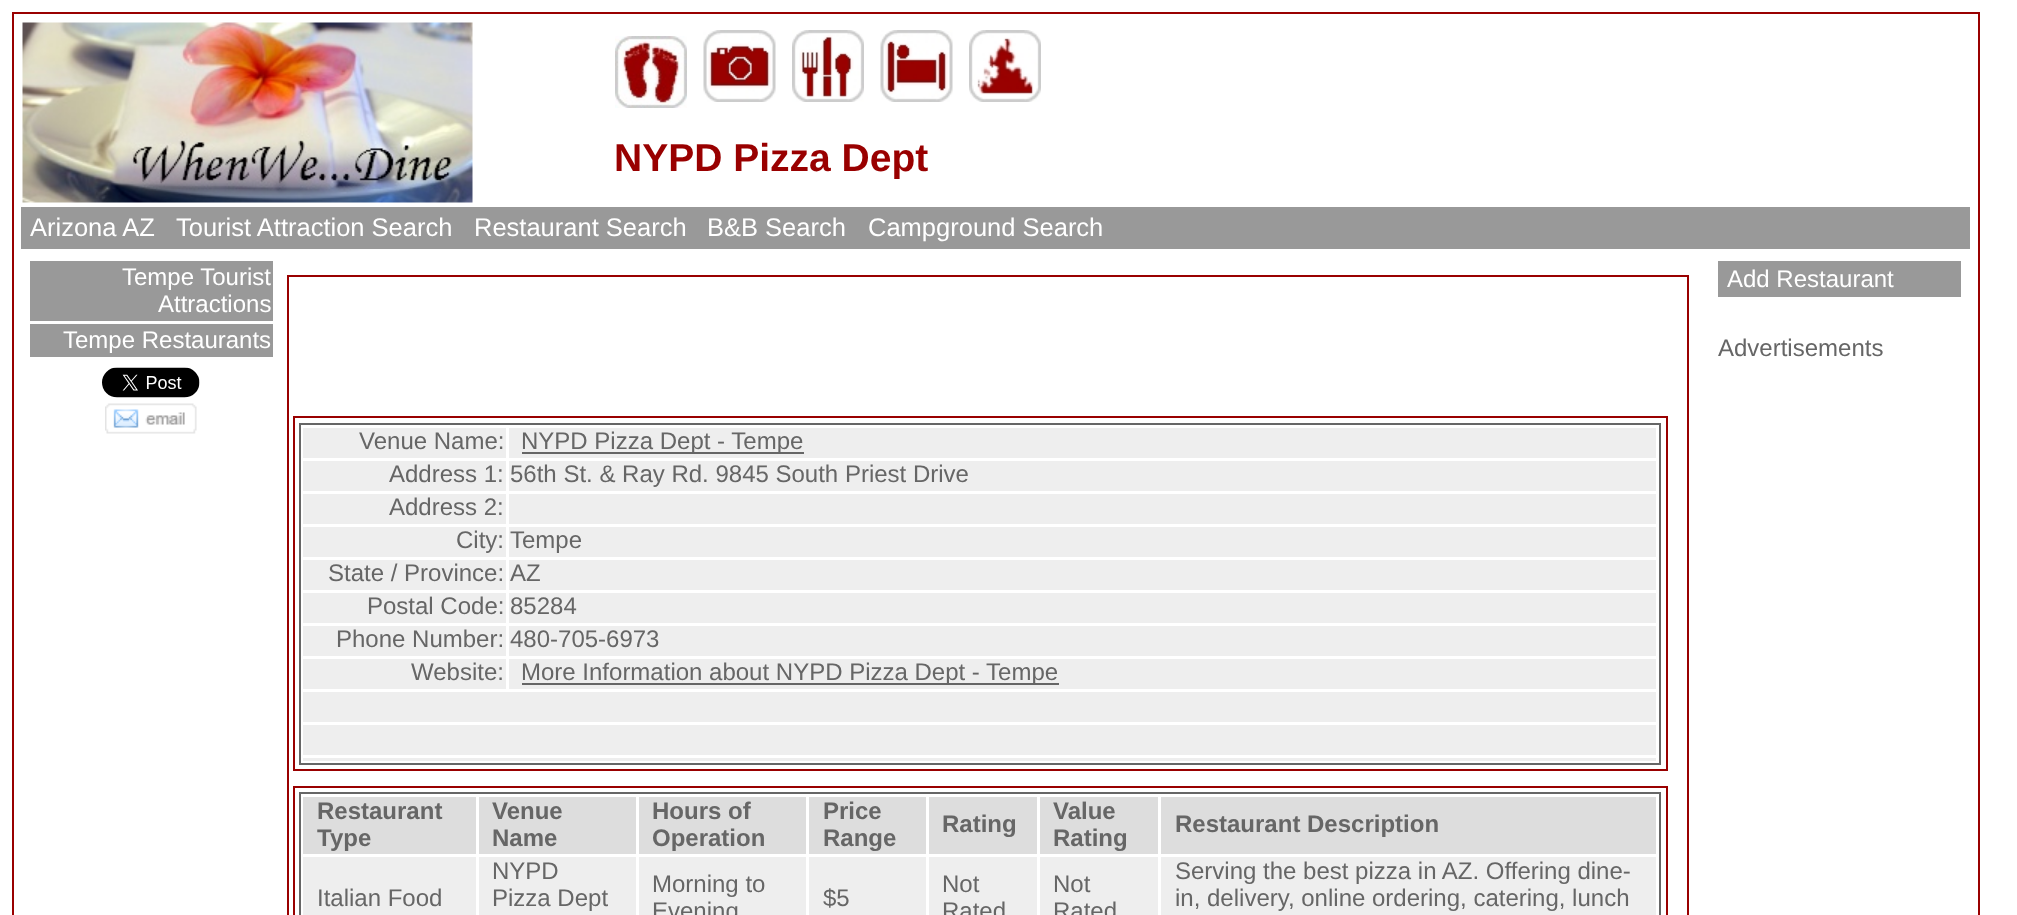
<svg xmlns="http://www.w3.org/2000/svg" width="2017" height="915">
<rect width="100%" height="100%" fill="#fff"/>
<rect x="13" y="13" width="1966" height="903" fill="none" stroke="#900" stroke-width="2"/>
<image x="22" y="22" width="451" height="181" href="media/1.png"/>
<image x="615" y="36" width="72" height="72" href="media/2.png"/>
<image x="703" y="30" width="73" height="72" href="media/3.png"/>
<image x="792" y="30" width="72" height="72" href="media/4.png"/>
<image x="880" y="30" width="73" height="72" href="media/5.png"/>
<image x="969" y="30" width="72" height="72" href="media/6.png"/>
<text x="614" y="171" style="font-family:Liberation Sans;font-size:39px;font-weight:bold;fill:#900">NYPD Pizza Dept</text>
<rect x="21" y="207" width="1949" height="42" fill="#999"/>
<text x="30" y="236" style="font-family:Liberation Sans;font-size:25.5px;fill:#fff">Arizona AZ</text>
<text x="176" y="236" style="font-family:Liberation Sans;font-size:25.5px;fill:#fff">Tourist Attraction Search</text>
<text x="474" y="236" style="font-family:Liberation Sans;font-size:25.5px;fill:#fff">Restaurant Search</text>
<text x="707" y="236" style="font-family:Liberation Sans;font-size:25.5px;fill:#fff">B&amp;B Search</text>
<text x="868" y="236" style="font-family:Liberation Sans;font-size:25.5px;fill:#fff">Campground Search</text>
<rect x="30" y="261" width="243" height="60" fill="#999"/>
<text x="122" y="285" style="font-family:Liberation Sans;font-size:24px;fill:#fff">Tempe Tourist</text>
<text x="158" y="312" style="font-family:Liberation Sans;font-size:24px;fill:#fff">Attractions</text>
<rect x="30" y="324" width="243" height="33" fill="#999"/>
<text x="63" y="348" style="font-family:Liberation Sans;font-size:24px;fill:#fff">Tempe Restaurants</text>
<image x="102" y="367" width="98" height="31" href="media/7.png"/>
<image x="105" y="403" width="92" height="31" href="media/8.png"/>
<rect x="1718" y="261" width="243" height="36" fill="#999"/>
<text x="1727" y="287" style="font-family:Liberation Sans;font-size:24px;fill:#fff">Add Restaurant</text>
<text x="1718" y="356" style="font-family:Liberation Sans;font-size:24px;fill:#666">Advertisements</text>
<rect x="288" y="276" width="1400" height="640" fill="none" stroke="#900" stroke-width="2"/>
<rect x="294" y="417" width="1373" height="353" fill="none" stroke="#900" stroke-width="2"/>
<rect x="300" y="424" width="1360" height="340" fill="none" stroke="#666" stroke-width="2"/>
<rect x="303" y="428" width="203" height="30" fill="#eee"/>
<text x="359" y="449" style="font-family:Liberation Sans;font-size:24px;fill:#666">Venue Name:</text>
<rect x="509" y="428" width="1147" height="30" fill="#eee"/>
<rect x="522" y="452" width="282" height="2" fill="#666"/>
<text x="521" y="449" style="font-family:Liberation Sans;font-size:24px;fill:#666">NYPD Pizza Dept - Tempe</text>
<rect x="303" y="461" width="203" height="30" fill="#eee"/>
<text x="389" y="482" style="font-family:Liberation Sans;font-size:24px;fill:#666">Address 1:</text>
<rect x="509" y="461" width="1147" height="30" fill="#eee"/>
<text x="510" y="482" style="font-family:Liberation Sans;font-size:24px;fill:#666">56th St. &amp; Ray Rd. 9845 South Priest Drive</text>
<rect x="303" y="494" width="203" height="30" fill="#eee"/>
<text x="389" y="515" style="font-family:Liberation Sans;font-size:24px;fill:#666">Address 2:</text>
<rect x="509" y="494" width="1147" height="30" fill="#eee"/>
<rect x="303" y="527" width="203" height="30" fill="#eee"/>
<text x="456" y="548" style="font-family:Liberation Sans;font-size:24px;fill:#666">City:</text>
<rect x="509" y="527" width="1147" height="30" fill="#eee"/>
<text x="510" y="548" style="font-family:Liberation Sans;font-size:24px;fill:#666">Tempe</text>
<rect x="303" y="560" width="203" height="30" fill="#eee"/>
<text x="328" y="581" style="font-family:Liberation Sans;font-size:24px;fill:#666">State / Province:</text>
<rect x="509" y="560" width="1147" height="30" fill="#eee"/>
<text x="510" y="581" style="font-family:Liberation Sans;font-size:24px;fill:#666">AZ</text>
<rect x="303" y="593" width="203" height="30" fill="#eee"/>
<text x="367" y="614" style="font-family:Liberation Sans;font-size:24px;fill:#666">Postal Code:</text>
<rect x="509" y="593" width="1147" height="30" fill="#eee"/>
<text x="510" y="614" style="font-family:Liberation Sans;font-size:24px;fill:#666">85284</text>
<rect x="303" y="626" width="203" height="30" fill="#eee"/>
<text x="336" y="647" style="font-family:Liberation Sans;font-size:24px;fill:#666">Phone Number:</text>
<rect x="509" y="626" width="1147" height="30" fill="#eee"/>
<text x="510" y="647" style="font-family:Liberation Sans;font-size:24px;fill:#666">480-705-6973</text>
<rect x="303" y="659" width="203" height="30" fill="#eee"/>
<text x="411" y="680" style="font-family:Liberation Sans;font-size:24px;fill:#666">Website:</text>
<rect x="509" y="659" width="1147" height="30" fill="#eee"/>
<rect x="522" y="683" width="537" height="2" fill="#666"/>
<text x="521" y="680" style="font-family:Liberation Sans;font-size:24px;fill:#666">More Information about NYPD Pizza Dept - Tempe</text>
<rect x="303" y="692" width="1353" height="30" fill="#eee"/>
<rect x="303" y="725" width="1353" height="30" fill="#eee"/>
<rect x="303" y="758" width="1353" height="3" fill="#eee"/>
<rect x="294" y="787" width="1373" height="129" fill="none" stroke="#900" stroke-width="2"/>
<rect x="300" y="793" width="1360" height="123" fill="none" stroke="#666" stroke-width="2"/>
<rect x="303" y="797" width="173" height="57" fill="#ddd"/>
<text x="317" y="819" style="font-family:Liberation Sans;font-size:24px;font-weight:bold;fill:#666">Restaurant</text>
<text x="317" y="846" style="font-family:Liberation Sans;font-size:24px;font-weight:bold;fill:#666">Type</text>
<rect x="479" y="797" width="157" height="57" fill="#ddd"/>
<text x="492" y="819" style="font-family:Liberation Sans;font-size:24px;font-weight:bold;fill:#666">Venue</text>
<text x="492" y="846" style="font-family:Liberation Sans;font-size:24px;font-weight:bold;fill:#666">Name</text>
<rect x="639" y="797" width="167" height="57" fill="#ddd"/>
<text x="652" y="819" style="font-family:Liberation Sans;font-size:24px;font-weight:bold;fill:#666">Hours of</text>
<text x="652" y="846" style="font-family:Liberation Sans;font-size:24px;font-weight:bold;fill:#666">Operation</text>
<rect x="809" y="797" width="117" height="57" fill="#ddd"/>
<text x="823" y="819" style="font-family:Liberation Sans;font-size:24px;font-weight:bold;fill:#666">Price</text>
<text x="823" y="846" style="font-family:Liberation Sans;font-size:24px;font-weight:bold;fill:#666">Range</text>
<rect x="929" y="797" width="108" height="57" fill="#ddd"/>
<text x="942" y="832" style="font-family:Liberation Sans;font-size:24px;font-weight:bold;fill:#666">Rating</text>
<rect x="1040" y="797" width="118" height="57" fill="#ddd"/>
<text x="1053" y="819" style="font-family:Liberation Sans;font-size:24px;font-weight:bold;fill:#666">Value</text>
<text x="1053" y="846" style="font-family:Liberation Sans;font-size:24px;font-weight:bold;fill:#666">Rating</text>
<rect x="1161" y="797" width="495" height="57" fill="#ddd"/>
<text x="1175" y="832" style="font-family:Liberation Sans;font-size:24px;font-weight:bold;fill:#666">Restaurant Description</text>
<rect x="303" y="857" width="173" height="58" fill="#eee"/>
<text x="317" y="906" style="font-family:Liberation Sans;font-size:24px;fill:#666">Italian Food</text>
<rect x="479" y="857" width="157" height="58" fill="#eee"/>
<text x="492" y="879" style="font-family:Liberation Sans;font-size:24px;fill:#666">NYPD</text>
<text x="492" y="906" style="font-family:Liberation Sans;font-size:24px;fill:#666">Pizza Dept</text>
<rect x="639" y="857" width="167" height="58" fill="#eee"/>
<text x="652" y="892" style="font-family:Liberation Sans;font-size:24px;fill:#666">Morning to</text>
<text x="652" y="919" style="font-family:Liberation Sans;font-size:24px;fill:#666">Evening</text>
<rect x="809" y="857" width="117" height="58" fill="#eee"/>
<text x="823" y="906" style="font-family:Liberation Sans;font-size:24px;fill:#666">$5</text>
<rect x="929" y="857" width="108" height="58" fill="#eee"/>
<text x="942" y="892" style="font-family:Liberation Sans;font-size:24px;fill:#666">Not</text>
<text x="942" y="919" style="font-family:Liberation Sans;font-size:24px;fill:#666">Rated</text>
<rect x="1040" y="857" width="118" height="58" fill="#eee"/>
<text x="1053" y="892" style="font-family:Liberation Sans;font-size:24px;fill:#666">Not</text>
<text x="1053" y="919" style="font-family:Liberation Sans;font-size:24px;fill:#666">Rated</text>
<rect x="1161" y="857" width="495" height="58" fill="#eee"/>
<text x="1175" y="879" style="font-family:Liberation Sans;font-size:24px;fill:#666">Serving the best pizza in AZ. Offering dine-</text>
<text x="1175" y="906" style="font-family:Liberation Sans;font-size:24px;fill:#666">in, delivery, online ordering, catering, lunch</text>
</svg>
